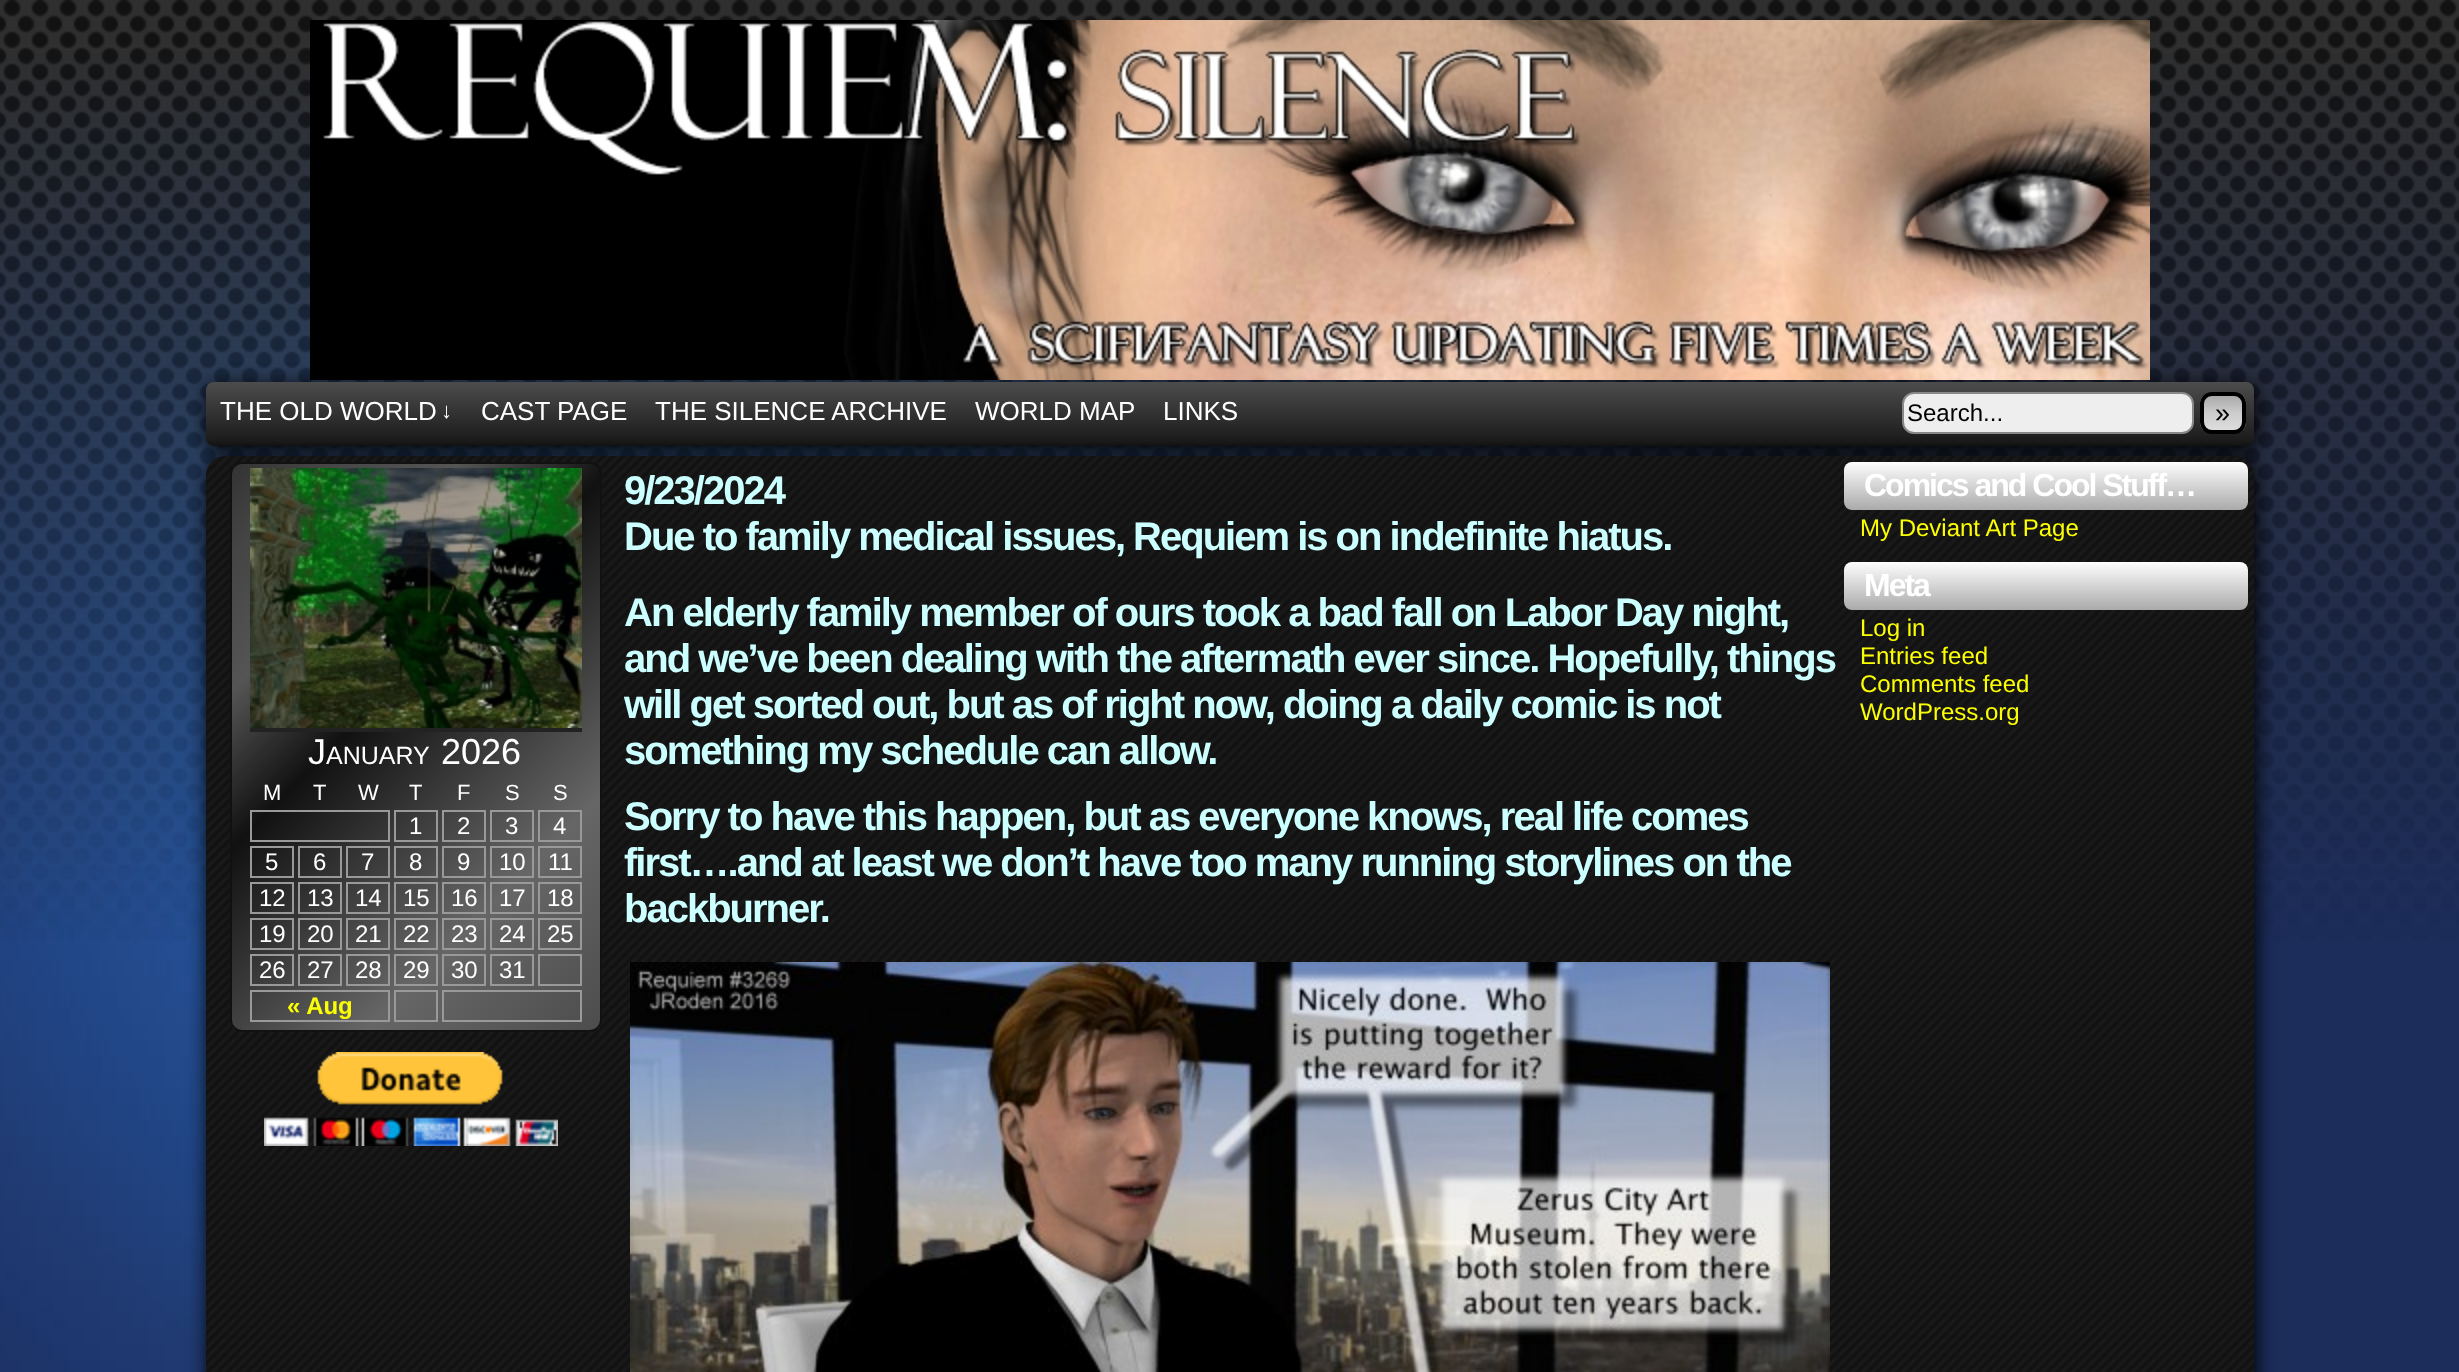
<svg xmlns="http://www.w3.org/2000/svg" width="2459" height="1372">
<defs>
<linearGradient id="g1" gradientUnits="userSpaceOnUse" x1="1230" y1="382" x2="1230" y2="446"><stop offset="0" stop-color="#4c4c4c"/><stop offset="0.91" stop-color="#1c1c1c"/><stop offset="1" stop-color="#131313"/></linearGradient>
<clipPath id="clip1"><rect x="2200" y="392" width="46" height="42" rx="12"/></clipPath>
<linearGradient id="g2" gradientUnits="userSpaceOnUse" x1="2223" y1="396" x2="2223" y2="430"><stop offset="0" stop-color="#aaa"/><stop offset="0.5" stop-color="#ccc"/><stop offset="1" stop-color="#ddd"/></linearGradient>
<clipPath id="clip2"><rect x="230" y="462" width="372" height="570" rx="12"/></clipPath>
<linearGradient id="g3" gradientUnits="userSpaceOnUse" x1="183" y1="514" x2="650" y2="981"><stop offset="0" stop-color="#333"/><stop offset="0.09" stop-color="#444"/><stop offset="0.24" stop-color="#555"/><stop offset="0.41" stop-color="#111"/><stop offset="0.75" stop-color="#666"/><stop offset="0.88" stop-color="#595959"/><stop offset="1" stop-color="#4c4c4c"/></linearGradient>
<linearGradient id="g4" gradientUnits="userSpaceOnUse" x1="2046" y1="462" x2="2046" y2="510"><stop offset="0" stop-color="#fefefe"/><stop offset="1" stop-color="#aaa"/></linearGradient>
<linearGradient id="g5" gradientUnits="userSpaceOnUse" x1="2046" y1="562" x2="2046" y2="610"><stop offset="0" stop-color="#fefefe"/><stop offset="1" stop-color="#aaa"/></linearGradient>
</defs>
<rect width="100%" height="100%" fill="#fff"/>
<image x="0" y="50" width="2459" height="1322" href="media/1.png"/>
<image x="0" y="0" width="2459" height="941" href="media/2.png"/>
<rect x="208" y="386" width="2048" height="64" rx="8" fill="#000" filter="blur(10px)"/>
<image x="310" y="20" width="1840" height="360" href="media/3.png"/>
<rect x="206" y="382" width="2048" height="64" rx="8" fill="url(#g1)"/>
<text x="220" y="420" style="font-family:Liberation Sans;font-size:26px;fill:#fff">THE OLD WORLD</text>
<text x="441" y="418" style="font-family:Liberation Sans;font-size:22px;fill:#fff">↓</text>
<text x="481" y="420" style="font-family:Liberation Sans;font-size:26px;fill:#fff">CAST PAGE</text>
<text x="655" y="420" style="font-family:Liberation Sans;font-size:26px;fill:#fff">THE SILENCE ARCHIVE</text>
<text x="975" y="420" style="font-family:Liberation Sans;font-size:26px;fill:#fff">WORLD MAP</text>
<text x="1163" y="420" style="font-family:Liberation Sans;font-size:26px;fill:#fff">LINKS</text>
<rect x="208" y="460" width="2048" height="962" rx="20" fill="#000" filter="blur(10px)"/>
<rect x="1903" y="393" width="290" height="40" rx="11" fill="#eee" stroke="#888" stroke-width="2"/>
<text x="1907" y="421" style="font-family:Liberation Sans;font-size:24px;fill:#000">Search...</text>
<g clip-path="url(#clip1)">
<rect x="2200" y="396" width="46" height="34" fill="url(#g2)"/>
</g>
<rect x="2202" y="394" width="42" height="38" rx="10" fill="none" stroke="#000" stroke-width="4"/>
<text x="2215" y="422" style="font-family:Liberation Sans;font-size:27px;fill:#000">»</text>
<rect x="206" y="456" width="2048" height="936" rx="20" fill="#111"/>
<image x="206" y="456" width="2048" height="916" href="media/4.png"/>
<g clip-path="url(#clip2)">
<rect x="232" y="464" width="368" height="566" fill="url(#g3)"/>
</g>
<rect x="231" y="463" width="370" height="568" rx="11" fill="none" stroke="#111" stroke-width="2"/>
<rect x="250" y="728" width="332" height="4" fill="#222"/>
<image x="250" y="468" width="332" height="260" href="media/5.png"/>
<text x="308" y="764" style="font-family:Liberation Sans;font-size:36px;fill:#fff">J</text>
<text x="326" y="764" style="font-family:Liberation Sans;font-size:25px;fill:#fff">ANUARY</text>
<text x="441" y="764" style="font-family:Liberation Sans;font-size:36px;fill:#fff">2026</text>
<text x="263" y="800" style="font-family:Liberation Sans;font-size:22px;fill:#fff">M</text>
<text x="313" y="800" style="font-family:Liberation Sans;font-size:22px;fill:#fff">T</text>
<text x="358" y="800" style="font-family:Liberation Sans;font-size:22px;fill:#fff">W</text>
<text x="409" y="800" style="font-family:Liberation Sans;font-size:22px;fill:#fff">T</text>
<text x="457" y="800" style="font-family:Liberation Sans;font-size:22px;fill:#fff">F</text>
<text x="505" y="800" style="font-family:Liberation Sans;font-size:22px;fill:#fff">S</text>
<text x="553" y="800" style="font-family:Liberation Sans;font-size:22px;fill:#fff">S</text>
<rect x="251" y="811" width="138" height="30" fill="none" stroke="#999" stroke-width="2"/>
<rect x="395" y="811" width="42" height="30" fill="none" stroke="#999" stroke-width="2"/>
<text x="409" y="834" style="font-family:Liberation Sans;font-size:24px;fill:#fff">1</text>
<rect x="443" y="811" width="42" height="30" fill="none" stroke="#999" stroke-width="2"/>
<text x="457" y="834" style="font-family:Liberation Sans;font-size:24px;fill:#fff">2</text>
<rect x="491" y="811" width="42" height="30" fill="none" stroke="#999" stroke-width="2"/>
<text x="505" y="834" style="font-family:Liberation Sans;font-size:24px;fill:#fff">3</text>
<rect x="539" y="811" width="42" height="30" fill="none" stroke="#999" stroke-width="2"/>
<text x="553" y="834" style="font-family:Liberation Sans;font-size:24px;fill:#fff">4</text>
<rect x="251" y="847" width="42" height="30" fill="none" stroke="#999" stroke-width="2"/>
<text x="265" y="870" style="font-family:Liberation Sans;font-size:24px;fill:#fff">5</text>
<rect x="299" y="847" width="42" height="30" fill="none" stroke="#999" stroke-width="2"/>
<text x="313" y="870" style="font-family:Liberation Sans;font-size:24px;fill:#fff">6</text>
<rect x="347" y="847" width="42" height="30" fill="none" stroke="#999" stroke-width="2"/>
<text x="361" y="870" style="font-family:Liberation Sans;font-size:24px;fill:#fff">7</text>
<rect x="395" y="847" width="42" height="30" fill="none" stroke="#999" stroke-width="2"/>
<text x="409" y="870" style="font-family:Liberation Sans;font-size:24px;fill:#fff">8</text>
<rect x="443" y="847" width="42" height="30" fill="none" stroke="#999" stroke-width="2"/>
<text x="457" y="870" style="font-family:Liberation Sans;font-size:24px;fill:#fff">9</text>
<rect x="491" y="847" width="42" height="30" fill="none" stroke="#999" stroke-width="2"/>
<text x="499" y="870" style="font-family:Liberation Sans;font-size:24px;fill:#fff">10</text>
<rect x="539" y="847" width="42" height="30" fill="none" stroke="#999" stroke-width="2"/>
<text x="548" y="870" style="font-family:Liberation Sans;font-size:24px;fill:#fff">11</text>
<rect x="251" y="883" width="42" height="30" fill="none" stroke="#999" stroke-width="2"/>
<text x="259" y="906" style="font-family:Liberation Sans;font-size:24px;fill:#fff">12</text>
<rect x="299" y="883" width="42" height="30" fill="none" stroke="#999" stroke-width="2"/>
<text x="307" y="906" style="font-family:Liberation Sans;font-size:24px;fill:#fff">13</text>
<rect x="347" y="883" width="42" height="30" fill="none" stroke="#999" stroke-width="2"/>
<text x="355" y="906" style="font-family:Liberation Sans;font-size:24px;fill:#fff">14</text>
<rect x="395" y="883" width="42" height="30" fill="none" stroke="#999" stroke-width="2"/>
<text x="403" y="906" style="font-family:Liberation Sans;font-size:24px;fill:#fff">15</text>
<rect x="443" y="883" width="42" height="30" fill="none" stroke="#999" stroke-width="2"/>
<text x="451" y="906" style="font-family:Liberation Sans;font-size:24px;fill:#fff">16</text>
<rect x="491" y="883" width="42" height="30" fill="none" stroke="#999" stroke-width="2"/>
<text x="499" y="906" style="font-family:Liberation Sans;font-size:24px;fill:#fff">17</text>
<rect x="539" y="883" width="42" height="30" fill="none" stroke="#999" stroke-width="2"/>
<text x="547" y="906" style="font-family:Liberation Sans;font-size:24px;fill:#fff">18</text>
<rect x="251" y="919" width="42" height="30" fill="none" stroke="#999" stroke-width="2"/>
<text x="259" y="942" style="font-family:Liberation Sans;font-size:24px;fill:#fff">19</text>
<rect x="299" y="919" width="42" height="30" fill="none" stroke="#999" stroke-width="2"/>
<text x="307" y="942" style="font-family:Liberation Sans;font-size:24px;fill:#fff">20</text>
<rect x="347" y="919" width="42" height="30" fill="none" stroke="#999" stroke-width="2"/>
<text x="355" y="942" style="font-family:Liberation Sans;font-size:24px;fill:#fff">21</text>
<rect x="395" y="919" width="42" height="30" fill="none" stroke="#999" stroke-width="2"/>
<text x="403" y="942" style="font-family:Liberation Sans;font-size:24px;fill:#fff">22</text>
<rect x="443" y="919" width="42" height="30" fill="none" stroke="#999" stroke-width="2"/>
<text x="451" y="942" style="font-family:Liberation Sans;font-size:24px;fill:#fff">23</text>
<rect x="491" y="919" width="42" height="30" fill="none" stroke="#999" stroke-width="2"/>
<text x="499" y="942" style="font-family:Liberation Sans;font-size:24px;fill:#fff">24</text>
<rect x="539" y="919" width="42" height="30" fill="none" stroke="#999" stroke-width="2"/>
<text x="547" y="942" style="font-family:Liberation Sans;font-size:24px;fill:#fff">25</text>
<rect x="251" y="955" width="42" height="30" fill="none" stroke="#999" stroke-width="2"/>
<text x="259" y="978" style="font-family:Liberation Sans;font-size:24px;fill:#fff">26</text>
<rect x="299" y="955" width="42" height="30" fill="none" stroke="#999" stroke-width="2"/>
<text x="307" y="978" style="font-family:Liberation Sans;font-size:24px;fill:#fff">27</text>
<rect x="347" y="955" width="42" height="30" fill="none" stroke="#999" stroke-width="2"/>
<text x="355" y="978" style="font-family:Liberation Sans;font-size:24px;fill:#fff">28</text>
<rect x="395" y="955" width="42" height="30" fill="none" stroke="#999" stroke-width="2"/>
<text x="403" y="978" style="font-family:Liberation Sans;font-size:24px;fill:#fff">29</text>
<rect x="443" y="955" width="42" height="30" fill="none" stroke="#999" stroke-width="2"/>
<text x="451" y="978" style="font-family:Liberation Sans;font-size:24px;fill:#fff">30</text>
<rect x="491" y="955" width="42" height="30" fill="none" stroke="#999" stroke-width="2"/>
<text x="499" y="978" style="font-family:Liberation Sans;font-size:24px;fill:#fff">31</text>
<rect x="539" y="955" width="42" height="30" fill="none" stroke="#999" stroke-width="2"/>
<rect x="251" y="991" width="138" height="30" fill="none" stroke="#999" stroke-width="2"/>
<text x="287" y="1014" style="font-family:Liberation Sans;font-size:24px;font-weight:bold;fill:#fcff00">« Aug</text>
<rect x="395" y="991" width="42" height="30" fill="none" stroke="#999" stroke-width="2"/>
<rect x="443" y="991" width="138" height="30" fill="none" stroke="#999" stroke-width="2"/>
<image x="264" y="1052" width="294" height="94" href="media/6.png"/>
<text x="624" y="504" style="font-family:Liberation Sans;font-size:40px;font-weight:bold;letter-spacing:-2px;fill:#cff">9/23/2024</text>
<text x="624" y="550" style="font-family:Liberation Sans;font-size:40px;font-weight:bold;letter-spacing:-2px;fill:#cff">Due to family medical issues, Requiem is on indefinite hiatus.</text>
<text x="624" y="626" style="font-family:Liberation Sans;font-size:40px;font-weight:bold;letter-spacing:-2px;fill:#cff">An elderly family member of ours took a bad fall on Labor Day night,</text>
<text x="624" y="672" style="font-family:Liberation Sans;font-size:40px;font-weight:bold;letter-spacing:-2px;fill:#cff">and we’ve been dealing with the aftermath ever since. Hopefully, things</text>
<text x="624" y="718" style="font-family:Liberation Sans;font-size:40px;font-weight:bold;letter-spacing:-2px;fill:#cff">will get sorted out, but as of right now, doing a daily comic is not</text>
<text x="624" y="764" style="font-family:Liberation Sans;font-size:40px;font-weight:bold;letter-spacing:-2px;fill:#cff">something my schedule can allow.</text>
<text x="624" y="830" style="font-family:Liberation Sans;font-size:40px;font-weight:bold;letter-spacing:-2px;fill:#cff">Sorry to have this happen, but as everyone knows, real life comes</text>
<text x="624" y="876" style="font-family:Liberation Sans;font-size:40px;font-weight:bold;letter-spacing:-2px;fill:#cff">first….and at least we don’t have too many running storylines on the</text>
<text x="624" y="922" style="font-family:Liberation Sans;font-size:40px;font-weight:bold;letter-spacing:-2px;fill:#cff">backburner.</text>
<image x="630" y="962" width="1200" height="410" href="media/7.png"/>
<rect x="1844" y="462" width="404" height="48" rx="8" fill="url(#g4)"/>
<text x="1864" y="496" style="font-family:Liberation Sans;font-size:32px;font-weight:bold;letter-spacing:-2px;fill:#fff">Comics and Cool Stuff…</text>
<text x="1860" y="536" style="font-family:Liberation Sans;font-size:24px;fill:#fcff00">My Deviant Art Page</text>
<rect x="1844" y="562" width="404" height="48" rx="8" fill="url(#g5)"/>
<text x="1864" y="596" style="font-family:Liberation Sans;font-size:32px;font-weight:bold;letter-spacing:-2px;fill:#fff">Meta</text>
<text x="1860" y="636" style="font-family:Liberation Sans;font-size:24px;fill:#fcff00">Log in</text>
<text x="1860" y="664" style="font-family:Liberation Sans;font-size:24px;fill:#fcff00">Entries feed</text>
<text x="1860" y="692" style="font-family:Liberation Sans;font-size:24px;fill:#fcff00">Comments feed</text>
<text x="1860" y="720" style="font-family:Liberation Sans;font-size:24px;fill:#fcff00">WordPress.org</text>
</svg>
